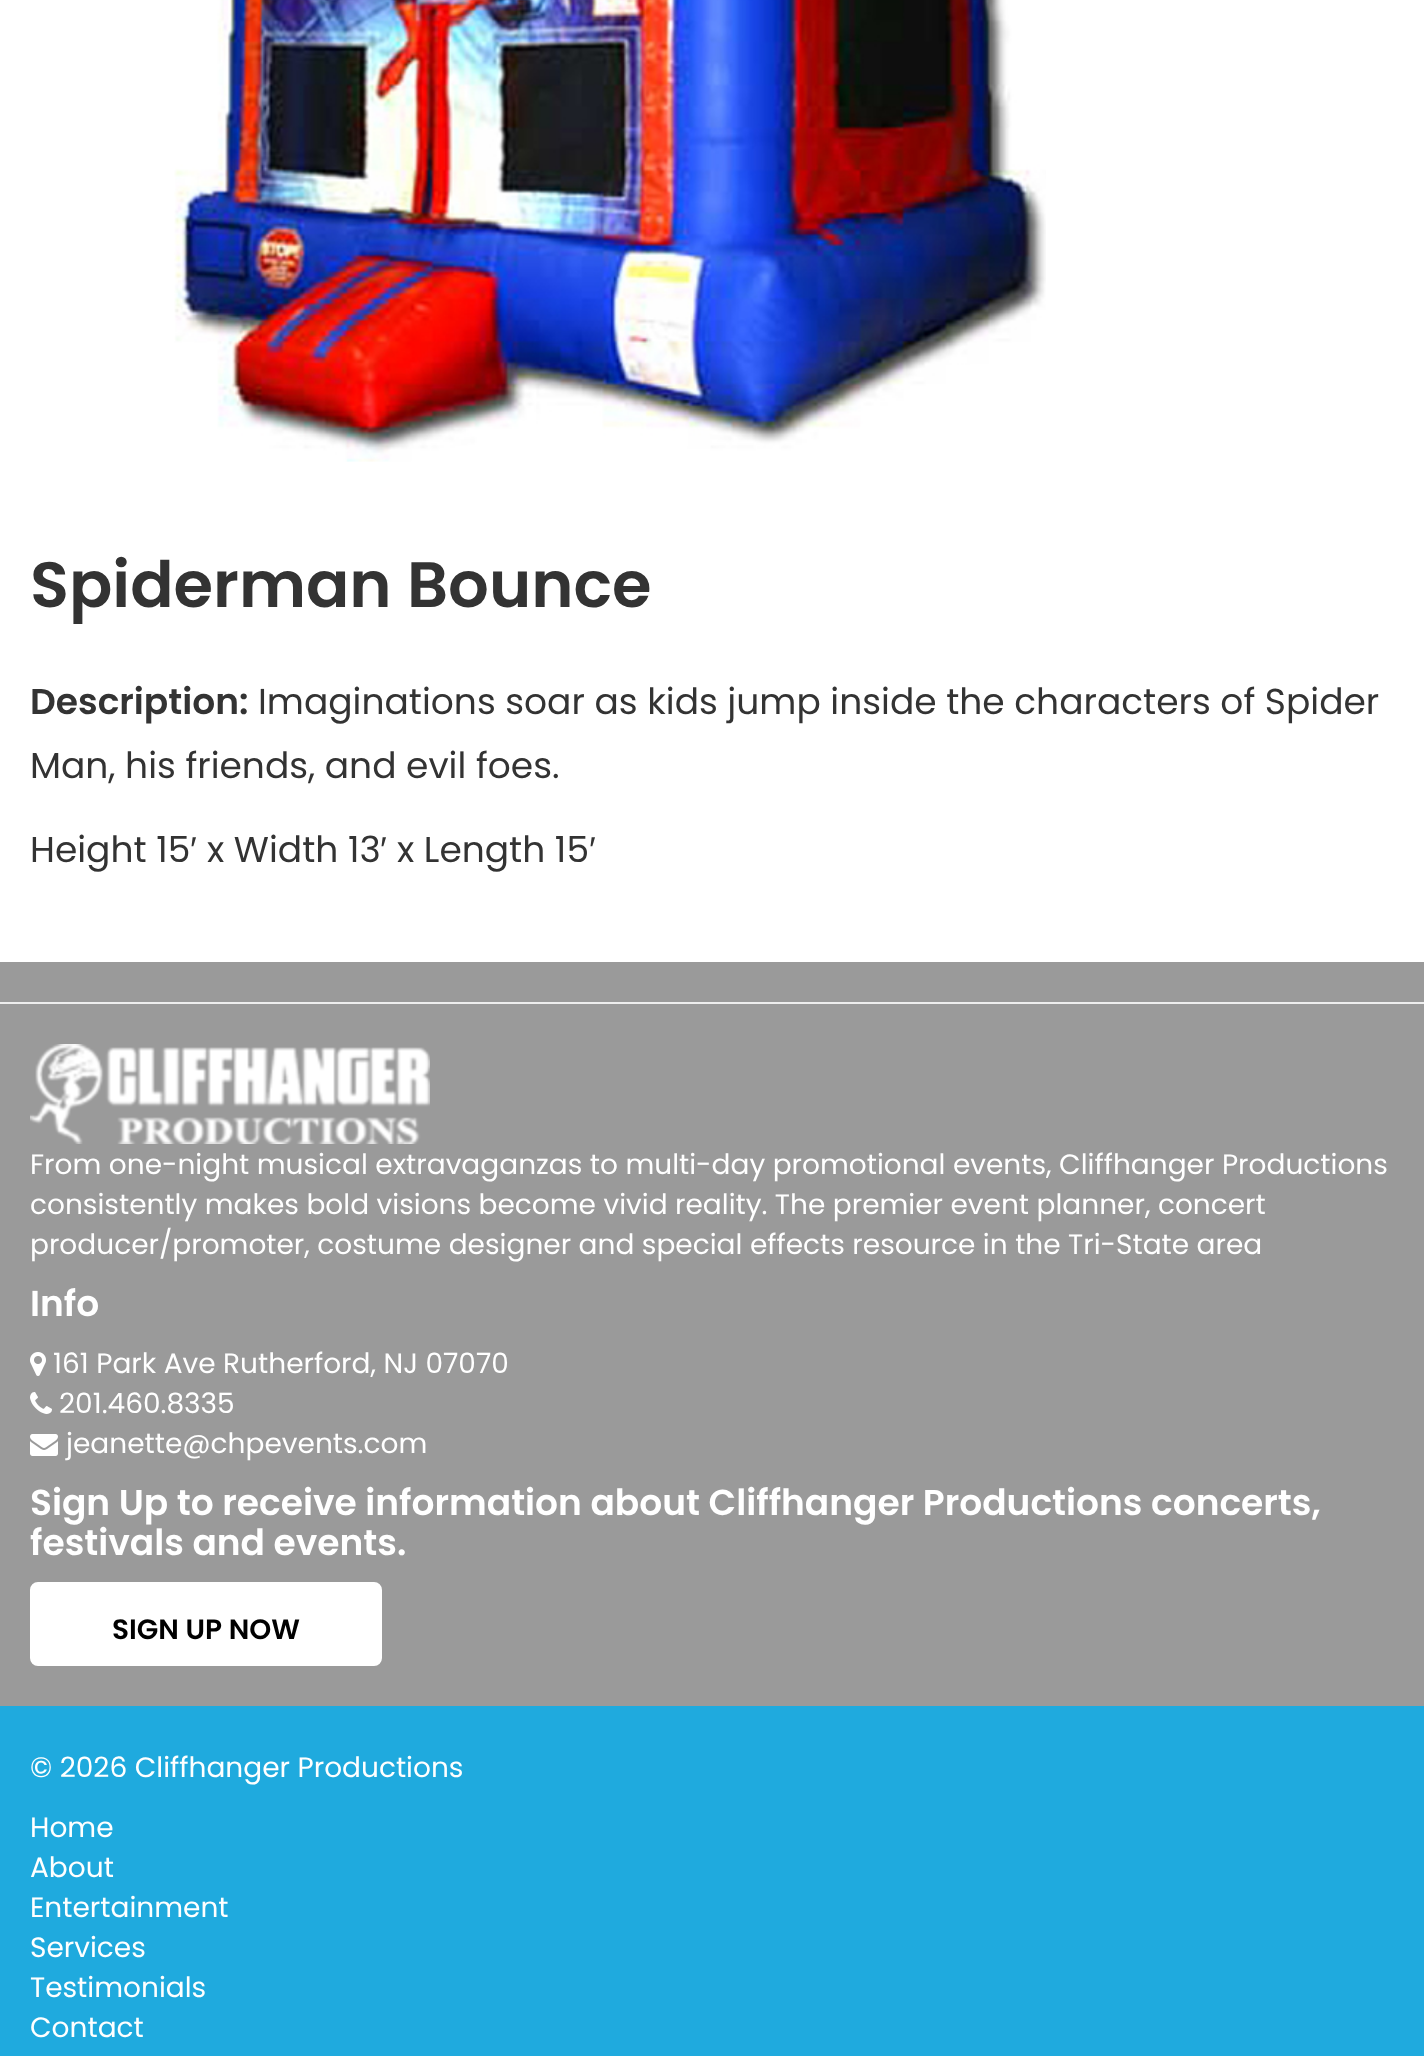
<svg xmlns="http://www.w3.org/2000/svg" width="1424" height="2056">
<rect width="100%" height="100%" fill="#9a9a9a"/>
<rect width="1424" height="962" fill="#fff"/>
<image x="174" y="0" width="872" height="462" href="media/1.png"/>
<text x="30" y="607" style="font-family:Poppins;font-size:64px;font-weight:600;fill:#333">Spiderman Bounce</text>
<text x="30" y="714" style="font-family:Poppins;font-size:36px;font-weight:600;fill:#333">Description:</text>
<text x="258" y="714" style="font-family:Poppins;font-size:36px;fill:#333">Imaginations soar as kids jump inside the characters of Spider</text>
<text x="30" y="778" style="font-family:Poppins;font-size:36px;fill:#333">Man, his friends, and evil foes.</text>
<text x="30" y="862" style="font-family:Poppins;font-size:36px;fill:#333">Height 15</text>
<text x="190" y="862" style="font-family:Liberation Sans;font-size:36px;fill:#333">′</text>
<text x="207" y="862" style="font-family:Poppins;font-size:36px;fill:#333">x Width 13</text>
<text x="380" y="862" style="font-family:Liberation Sans;font-size:36px;fill:#333">′</text>
<text x="397" y="862" style="font-family:Poppins;font-size:36px;fill:#333">x Length 15</text>
<text x="589" y="862" style="font-family:Liberation Sans;font-size:36px;fill:#333">′</text>
<rect y="1002" width="1424" height="2" fill="#eee"/>
<image x="30" y="1044" width="400" height="100" href="media/2.png"/>
<text x="30" y="1174" style="font-family:Poppins;font-size:28px;fill:#fff">From one-night musical extravaganzas to multi-day promotional events, Cliffhanger Productions</text>
<text x="30" y="1214" style="font-family:Poppins;font-size:28px;fill:#fff">consistently makes bold visions become vivid reality. The premier event planner, concert</text>
<text x="30" y="1254" style="font-family:Poppins;font-size:28px;fill:#fff">producer/promoter, costume designer and special effects resource in the Tri-State area</text>
<text x="30" y="1316" style="font-family:Poppins;font-size:36px;font-weight:600;fill:#fff">Info</text>
<image x="30" y="1352" width="16" height="24" href="media/3.png"/>
<text x="53" y="1373" style="font-family:Poppins;font-size:28px;fill:#fff">161 Park Ave Rutherford, NJ 07070</text>
<image x="30" y="1392" width="22" height="22" href="media/4.png"/>
<text x="59" y="1413" style="font-family:Poppins;font-size:28px;fill:#fff">201.460.8335</text>
<image x="30" y="1434" width="28" height="22" href="media/5.png"/>
<text x="66" y="1453" style="font-family:Poppins;font-size:28px;fill:#fff">jeanette@chpevents.com</text>
<text x="30" y="1515" style="font-family:Poppins;font-size:36px;font-weight:600;fill:#fff">Sign Up to receive information about Cliffhanger Productions concerts,</text>
<text x="30" y="1555" style="font-family:Poppins;font-size:36px;font-weight:600;fill:#fff">festivals and events.</text>
<rect x="31" y="1583" width="350" height="82" rx="7" fill="#fff" stroke="#fff" stroke-width="2"/>
<text x="112" y="1639" style="font-family:Poppins;font-size:28px;font-weight:600;fill:#000">SIGN UP NOW</text>
<rect y="1706" width="1424" height="350" fill="#1faade"/>
<text x="30" y="1777" style="font-family:Poppins;font-size:28px;fill:#fff">© 2026 Cliffhanger Productions</text>
<text x="30" y="1837" style="font-family:Poppins;font-size:28px;fill:#fff">Home</text>
<text x="30" y="1877" style="font-family:Poppins;font-size:28px;fill:#fff">About</text>
<text x="30" y="1917" style="font-family:Poppins;font-size:28px;fill:#fff">Entertainment</text>
<text x="30" y="1957" style="font-family:Poppins;font-size:28px;fill:#fff">Services</text>
<text x="30" y="1997" style="font-family:Poppins;font-size:28px;fill:#fff">Testimonials</text>
<text x="30" y="2037" style="font-family:Poppins;font-size:28px;fill:#fff">Contact</text>
</svg>
